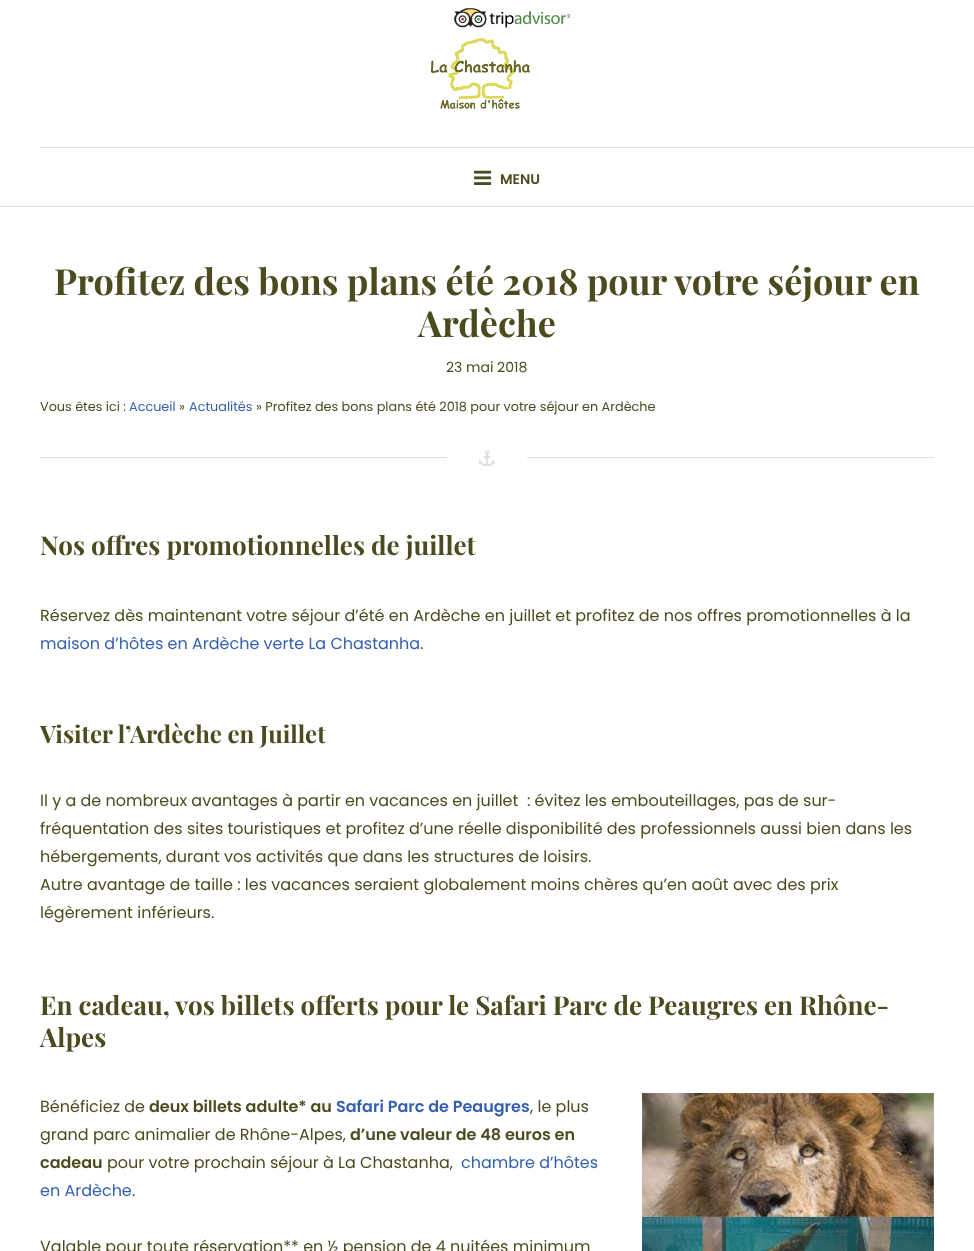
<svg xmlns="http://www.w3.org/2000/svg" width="974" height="1251">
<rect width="100%" height="100%" fill="#fff"/>
<image x="454" y="8" width="117" height="20" href="media/1.png"/>
<rect x="40" y="147" width="934" height="1" fill="#e0e0e0"/>
<image x="431" y="38" width="99" height="71" href="media/2.png"/>
<rect y="206" width="974" height="1" fill="#e0e0e0"/>
<image x="474" y="170" width="18" height="15" href="media/3.png"/>
<text x="500" y="184" style="font-family:Poppins;font-size:14px;font-weight:600;fill:#4c4b1f">MENU</text>
<rect x="40" y="457" width="894" height="1" fill="#e0e0e0"/>
<text x="54" y="295" style="font-family:Playfair Display;font-size:36px;font-weight:bold;fill:#4c4b1f">Profitez des bons plans été 2018 pour votre séjour en</text>
<text x="418" y="337" style="font-family:Playfair Display;font-size:36px;font-weight:bold;fill:#4c4b1f">Ardèche</text>
<text x="446" y="372" style="font-family:Poppins;font-size:14px;fill:#4c4b1f">23 mai 2018</text>
<text x="40" y="411" style="font-family:Poppins;font-size:12.8px;fill:#4c4b1f">Vous êtes ici :</text>
<text x="129" y="411" style="font-family:Poppins;font-size:12.8px;fill:#3560b0">Accueil</text>
<text x="179" y="411" style="font-family:Poppins;font-size:12.8px;fill:#4c4b1f">»</text>
<text x="189" y="411" style="font-family:Poppins;font-size:12.8px;fill:#3560b0">Actualités</text>
<text x="256" y="411" style="font-family:Poppins;font-size:12.8px;fill:#4c4b1f">» Profitez des bons plans été 2018 pour votre séjour en Ardèche</text>
<rect x="447" y="457" width="80" height="1" fill="#fff"/>
<image x="479" y="450" width="16" height="16" href="media/4.png"/>
<text x="40" y="555" style="font-family:Playfair Display;font-size:26px;font-weight:bold;fill:#4c4b1f">Nos offres promotionnelles de juillet</text>
<text x="40" y="621" style="font-family:Poppins;font-size:16px;fill:#4c4b1f">Réservez dès maintenant votre séjour d’été en Ardèche en juillet et profitez de nos offres promotionnelles à la</text>
<text x="40" y="649" style="font-family:Poppins;font-size:16px;fill:#3560b0">maison d’hôtes en Ardèche verte La Chastanha</text>
<text x="420" y="649" style="font-family:Poppins;font-size:16px;fill:#4c4b1f">.</text>
<text x="40" y="743" style="font-family:Playfair Display;font-size:24px;font-weight:bold;fill:#4c4b1f">Visiter l’Ardèche en Juillet</text>
<text x="40" y="806" style="font-family:Poppins;font-size:16px;fill:#4c4b1f" xml:space="preserve">Il y a de nombreux avantages à partir en vacances en juillet  : évitez les embouteillages, pas de sur-</text>
<text x="40" y="834" style="font-family:Poppins;font-size:16px;fill:#4c4b1f">fréquentation des sites touristiques et profitez d’une réelle disponibilité des professionnels aussi bien dans les</text>
<text x="40" y="862" style="font-family:Poppins;font-size:16px;fill:#4c4b1f">hébergements, durant vos activités que dans les structures de loisirs.</text>
<text x="40" y="890" style="font-family:Poppins;font-size:16px;fill:#4c4b1f">Autre avantage de taille : les vacances seraient globalement moins chères qu’en août avec des prix</text>
<text x="40" y="918" style="font-family:Poppins;font-size:16px;fill:#4c4b1f">légèrement inférieurs.</text>
<text x="40" y="1015" style="font-family:Playfair Display;font-size:26px;font-weight:bold;fill:#4c4b1f">En cadeau, vos billets offerts pour le Safari Parc de Peaugres en Rhône-</text>
<text x="40" y="1047" style="font-family:Playfair Display;font-size:26px;font-weight:bold;fill:#4c4b1f">Alpes</text>
<text x="40" y="1112" style="font-family:Poppins;font-size:16px;fill:#4c4b1f">Bénéficiez de</text>
<text x="149" y="1112" style="font-family:Poppins;font-size:16px;font-weight:600;fill:#4c4b1f">deux billets adulte* au</text>
<text x="336" y="1112" style="font-family:Poppins;font-size:16px;font-weight:600;fill:#3560b0">Safari Parc de Peaugres</text>
<text x="530" y="1112" style="font-family:Poppins;font-size:16px;fill:#4c4b1f">, le plus</text>
<image x="642" y="1093" width="292" height="158" href="media/5.png"/>
<text x="40" y="1140" style="font-family:Poppins;font-size:16px;fill:#4c4b1f">grand parc animalier de Rhône-Alpes,</text>
<text x="350" y="1140" style="font-family:Poppins;font-size:16px;font-weight:600;fill:#4c4b1f">d’une valeur de 48 euros en</text>
<text x="40" y="1168" style="font-family:Poppins;font-size:16px;font-weight:600;fill:#4c4b1f">cadeau</text>
<text x="107" y="1168" style="font-family:Poppins;font-size:16px;fill:#4c4b1f">pour votre prochain séjour à La Chastanha,</text>
<text x="461" y="1168" style="font-family:Poppins;font-size:16px;fill:#3560b0">chambre d’hôtes</text>
<text x="40" y="1196" style="font-family:Poppins;font-size:16px;fill:#3560b0">en Ardèche</text>
<text x="132" y="1196" style="font-family:Poppins;font-size:16px;fill:#4c4b1f">.</text>
<text x="40" y="1252" style="font-family:Poppins;font-size:16px;fill:#4c4b1f">Valable pour toute réservation** en ½ pension de 4 nuitées minimum</text>
</svg>
